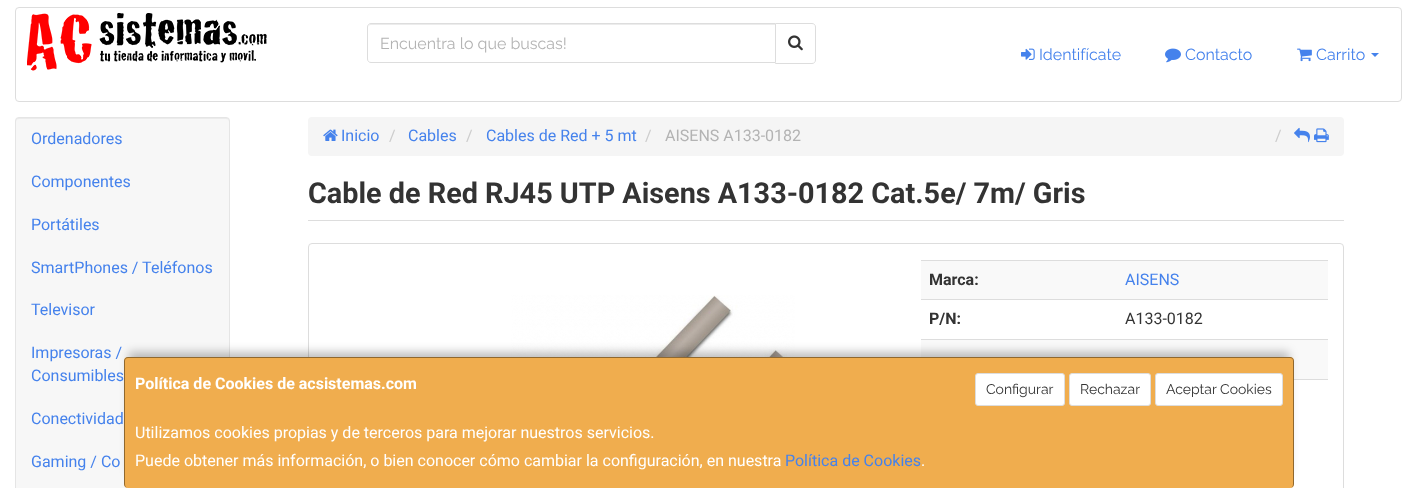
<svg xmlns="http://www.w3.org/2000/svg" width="1417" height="488">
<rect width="100%" height="100%" fill="#fff"/>
<rect x="15.5" y="7.5" width="1386" height="94" rx="3.5" fill="none" stroke="#ddd"/>
<image x="27" y="13" width="240" height="58" href="media/1.png"/>
<path d="M775.5 23.5h36.5c2 0 3.5 1.5 3.5 3.5v33c0 2-1.5 3.5-3.5 3.5h-36.5z" fill="none" stroke="#ddd"/>
<path d="M371 23h405v40h-405c-2 0-4-2-4-4v-32c0-2 2-4 4-4z" fill="#fff"/>
<path d="M371 25h404v-1h-404c-2 0-3 2-3 4c0-2 1-3 3-3z" fill="#ececec"/>
<path d="M371 23.5h404.5v39h-404.5c-2 0-3.5-1.5-3.5-3.5v-32c0-2 1.5-3.5 3.5-3.5z" fill="none" stroke="#ddd"/>
<text x="380" y="49" style="font-family:Raleway;font-size:16px;fill:#b3b3b3">Encuentra lo que buscas!</text>
<image x="788" y="35" width="15" height="16" href="media/2.png"/>
<image x="1021" y="48" width="14" height="12" href="media/3.png"/>
<text x="1039" y="60" style="font-family:Raleway;font-size:16px;fill:#4582ec">Identifícate</text>
<image x="1165" y="48" width="16" height="15" href="media/4.png"/>
<text x="1185" y="60" style="font-family:Raleway;font-size:16px;fill:#4582ec">Contacto</text>
<image x="1297" y="48" width="15" height="14" href="media/5.png"/>
<text x="1316" y="60" style="font-family:Raleway;font-size:16px;fill:#4582ec">Carrito</text>
<path d="M1371 53h8l-4 4z" fill="#4582ec"/>
<rect x="15" y="117" width="215" height="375" rx="4" fill="#f7f7f7"/>
<path d="M19 119h207c2 0 3 1 3 3v-1c0-2-1-3-3-3h-207c-2 0-3 1-3 3v1c0-2 1-3 3-3z" fill="#ebebeb"/>
<rect x="15.5" y="117.5" width="214" height="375" rx="3.5" fill="none" stroke="#e5e5e5"/>
<text x="31" y="144" style="font-family:Roboto;font-size:16px;fill:#4582ec">Ordenadores</text>
<text x="31" y="187" style="font-family:Roboto;font-size:16px;fill:#4582ec">Componentes</text>
<text x="31" y="230" style="font-family:Roboto;font-size:16px;fill:#4582ec">Portátiles</text>
<text x="31" y="273" style="font-family:Roboto;font-size:16px;fill:#4582ec">SmartPhones / Teléfonos</text>
<text x="31" y="315" style="font-family:Roboto;font-size:16px;fill:#4582ec">Televisor</text>
<text x="31" y="358" style="font-family:Roboto;font-size:16px;fill:#4582ec">Impresoras /</text>
<text x="31" y="381" style="font-family:Roboto;font-size:16px;fill:#4582ec">Consumibles</text>
<text x="31" y="424" style="font-family:Roboto;font-size:16px;fill:#4582ec">Conectividad</text>
<text x="31" y="467" style="font-family:Roboto;font-size:16px;fill:#4582ec">Gaming / Co</text>
<rect x="308" y="117" width="1036" height="39" rx="4" fill="#f5f5f5"/>
<image x="323" y="129" width="15" height="12" href="media/6.png"/>
<text x="341" y="141" style="font-family:Roboto;font-size:16px;fill:#4582ec">Inicio</text>
<text x="389" y="141" style="font-family:Roboto;font-size:16px;fill:#ccc">/</text>
<text x="408" y="141" style="font-family:Roboto;font-size:16px;fill:#4582ec">Cables</text>
<text x="466" y="141" style="font-family:Roboto;font-size:16px;fill:#ccc">/</text>
<text x="486" y="141" style="font-family:Roboto;font-size:16px;fill:#4582ec">Cables de Red + 5 mt</text>
<text x="645" y="141" style="font-family:Roboto;font-size:16px;fill:#ccc">/</text>
<text x="665" y="141" style="font-family:Roboto;font-size:16px;fill:#b3b3b3">AISENS A133-0182</text>
<text x="1275" y="141" style="font-family:Roboto;font-size:16px;fill:#ccc">/</text>
<image x="1294" y="127" width="16" height="16" href="media/7.png"/>
<image x="1314" y="128" width="15" height="15" href="media/8.png"/>
<rect x="308" y="220" width="1036" height="1" fill="#ddd"/>
<text x="308" y="203" style="font-family:Roboto;font-size:28.8px;font-weight:bold;fill:#333">Cable de Red RJ45 UTP Aisens A133-0182 Cat.5e/ 7m/ Gris</text>
<rect x="308.5" y="243.5" width="1035" height="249" rx="3.5" fill="none" stroke="#ddd"/>
<image x="511" y="295" width="284" height="62" href="media/9.png"/>
<rect x="921" y="261" width="407" height="38" fill="#f9f9f9"/>
<text x="929" y="285" style="font-family:Roboto;font-size:16px;font-weight:bold;fill:#333">Marca:</text>
<rect x="921" y="260" width="407" height="1" fill="#ddd"/>
<text x="1125" y="285" style="font-family:Roboto;font-size:16px;fill:#4582ec">AISENS</text>
<text x="929" y="324" style="font-family:Roboto;font-size:16px;font-weight:bold;fill:#333">P/N:</text>
<rect x="921" y="299" width="407" height="1" fill="#ddd"/>
<text x="1125" y="324" style="font-family:Roboto;font-size:16px;fill:#333">A133-0182</text>
<rect x="921" y="340" width="407" height="39" fill="#f9f9f9"/>
<rect x="921" y="339" width="407" height="1" fill="#ddd"/>
<rect x="1294" y="379" width="34" height="1" fill="#ddd"/>
<rect x="129" y="352" width="1160" height="121" fill="#00000040" filter="blur(5px)"/>
<rect x="124" y="357" width="1170" height="131" rx="4" fill="#f0ad4e"/>
<path d="M128 357h1162c2 0 4 2 4 4v123c0 2-2 4-4 4h-1162c-2 0-4-2-4-4v-123c0-2 2-4 4-4zm0 1h1162c2 0 3 1 3 3v123c0 2-1 4-3 4h-1162c-2 0-3-2-3-4v-123c0-2 1-3 3-3z" fill="#00000066" fill-rule="evenodd"/>
<text x="135" y="389" style="font-family:Roboto;font-size:16px;font-weight:bold;fill:#fff">Política de Cookies de acsistemas.com</text>
<rect x="975.5" y="373.5" width="89" height="32" rx="2.5" fill="#fff" stroke="#ddd"/>
<text x="986" y="394" style="font-family:Raleway;font-size:14px;fill:#333">Configurar</text>
<rect x="1069.5" y="373.5" width="81" height="32" rx="2.5" fill="#fff" stroke="#ddd"/>
<text x="1080" y="394" style="font-family:Raleway;font-size:14px;fill:#333">Rechazar</text>
<rect x="1155.5" y="373.5" width="127" height="32" rx="2.5" fill="#fff" stroke="#ddd"/>
<text x="1166" y="394" style="font-family:Raleway;font-size:14px;fill:#333">Aceptar Cookies</text>
<text x="135" y="438" style="font-family:Roboto;font-size:16px;fill:#fff">Utilizamos cookies propias y de terceros para mejorar nuestros servicios.</text>
<text x="135" y="466" style="font-family:Roboto;font-size:16px;fill:#fff">Puede obtener más información, o bien conocer cómo cambiar la configuración, en nuestra</text>
<text x="785" y="466" style="font-family:Roboto;font-size:16px;fill:#4582ec">Política de Cookies</text>
<text x="921" y="466" style="font-family:Roboto;font-size:16px;fill:#fff">.</text>
</svg>
